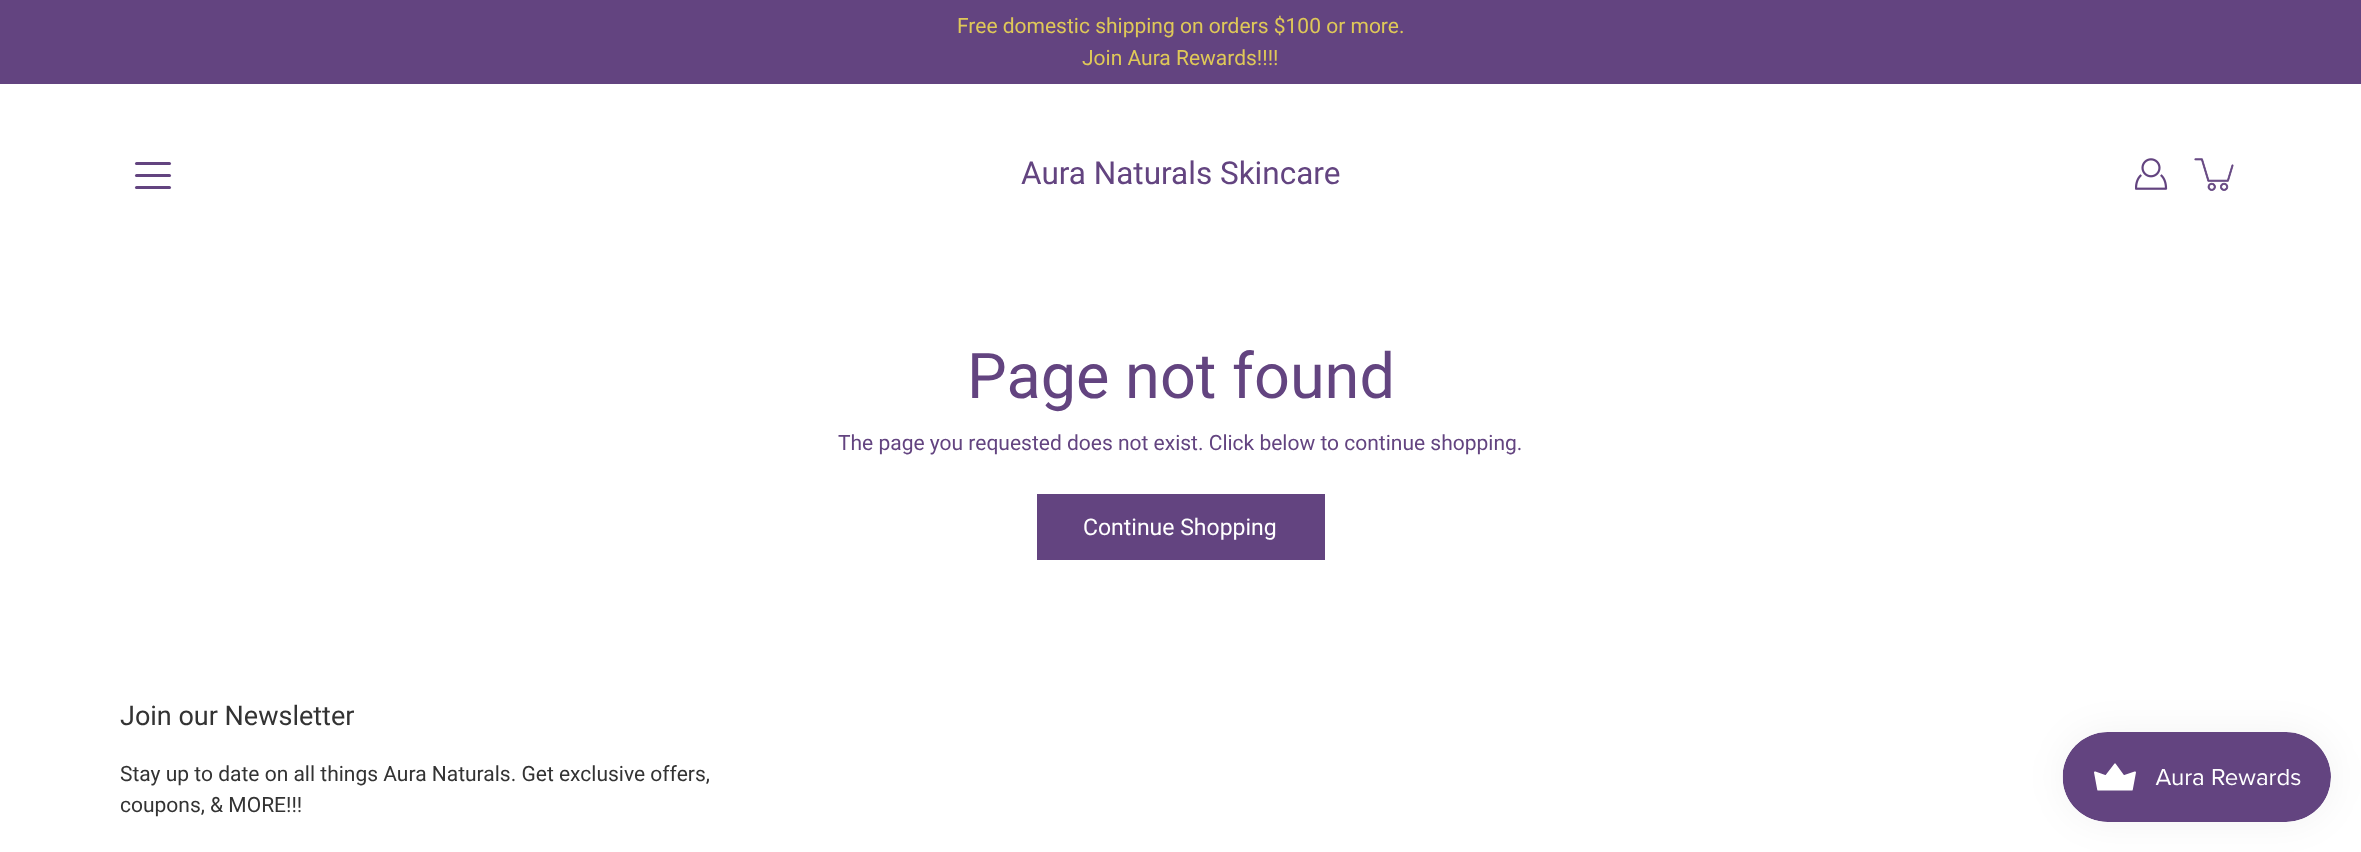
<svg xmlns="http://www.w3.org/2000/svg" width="2361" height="852">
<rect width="100%" height="100%" fill="#fff"/>
<rect width="2361" height="84" fill="#634480"/>
<text x="957" y="33" style="font-family:Roboto;font-size:21px;fill:#dfc858">Free domestic shipping on orders $100 or more.</text>
<text x="1082" y="65" style="font-family:Roboto;font-size:21px;fill:#dfc858">Join Aura Rewards!!!!</text>
<rect x="135" y="174" width="36" height="3" rx="1.5" fill="#634480"/>
<rect x="135" y="162" width="36" height="3" rx="1.5" fill="#634480"/>
<rect x="135" y="186" width="36" height="3" rx="1.5" fill="#634480"/>
<image x="2135" y="158" width="33" height="32" href="media/1.png"/>
<image x="2194" y="158" width="40" height="33" href="media/2.png"/>
<text x="1021" y="184" style="font-family:Roboto;font-size:31.5px;fill:#634480">Aura Naturals Skincare</text>
<text x="967" y="398" style="font-family:Roboto;font-size:63px;fill:#634480">Page not found</text>
<text x="838" y="450" style="font-family:Roboto;font-size:21px;fill:#634480">The page you requested does not exist. Click below to continue shopping.</text>
<rect x="1037" y="494" width="288" height="66" fill="#634480"/>
<text x="1083" y="535" style="font-family:Roboto;font-size:23px;fill:#fff">Continue Shopping</text>
<text x="120" y="725" style="font-family:Roboto;font-size:27px;fill:#333">Join our Newsletter</text>
<text x="120" y="781" style="font-family:Roboto;font-size:21px;fill:#333">Stay up to date on all things Aura Naturals. Get exclusive offers,</text>
<text x="120" y="812" style="font-family:Roboto;font-size:21px;fill:#333">coupons, &amp; MORE!!!</text>
<rect x="2063" y="732" width="268" height="90" rx="45" fill="#0000000d" filter="blur(19px)"/>
<image x="2062" y="732" width="269" height="90" href="media/3.png"/>
</svg>
